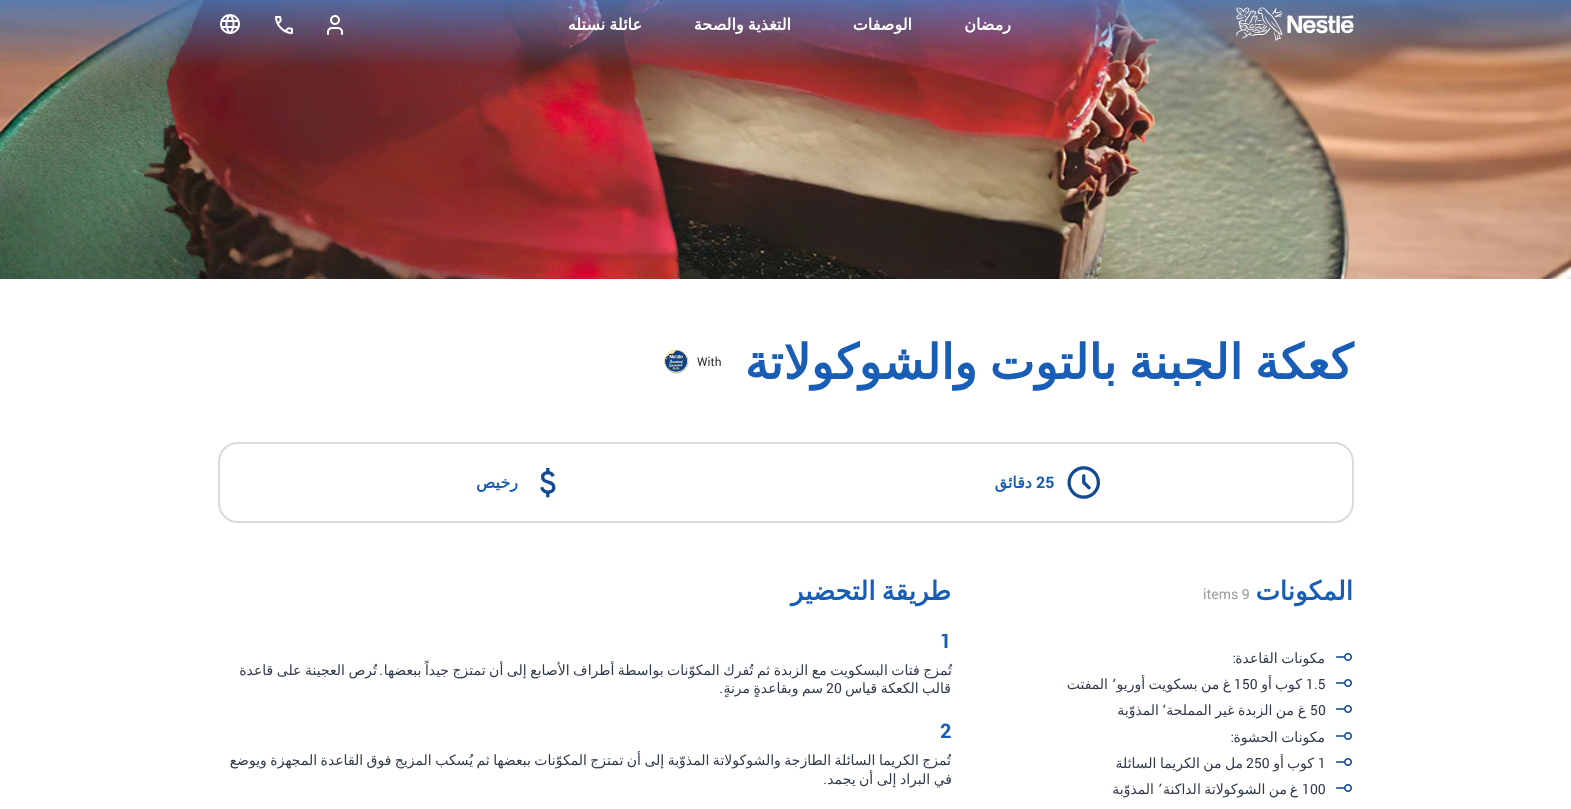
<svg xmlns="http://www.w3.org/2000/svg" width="1571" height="809">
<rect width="100%" height="100%" fill="#fff"/>
<image x="0" y="0" width="1571" height="279" href="media/6.png"/>
<image x="0" y="0" width="1571" height="67" href="media/1.png"/>
<image x="1236" y="7" width="118" height="34" href="media/2.png"/>
<text x="1011" y="30" style="font-family:DejaVu Sans;font-size:16px;font-weight:bold;direction:rtl;fill:#fff">رمضان</text>
<text x="912" y="30" style="font-family:DejaVu Sans;font-size:16px;font-weight:bold;direction:rtl;fill:#fff">الوصفات</text>
<text x="791" y="30" word-spacing="-1" style="font-family:DejaVu Sans;font-size:16px;font-weight:bold;direction:rtl;fill:#fff">التغذية والصحة</text>
<text x="642" y="30" word-spacing="-1" style="font-family:DejaVu Sans;font-size:16px;font-weight:bold;direction:rtl;fill:#fff">عائلة نستله</text>
<image x="327" y="15" width="16" height="20" href="media/3.png"/>
<image x="275" y="16" width="18" height="18" href="media/4.png"/>
<image x="220" y="14" width="20" height="20" href="media/5.png"/>
<text x="1353" y="379" word-spacing="-3" style="font-family:DejaVu Sans;font-size:48px;font-weight:bold;direction:rtl;fill:#185db6">كعكة الجبنة بالتوت والشوكولاتة</text>
<text x="697" y="366" style="font-family:Roboto;font-size:12px;fill:#303133">With</text>
<image x="663" y="349" width="26" height="25" href="media/7.png"/>
<rect x="219" y="443" width="1134" height="79" rx="19" fill="none" stroke="#d8dae0" stroke-width="2"/>
<image x="1067" y="466" width="33" height="33" href="media/8.png"/>
<text x="1036" y="488" style="font-family:Roboto;font-size:16px;font-weight:bold;fill:#185db6">25</text>
<text x="1032" y="488" style="font-family:DejaVu Sans;font-size:16px;font-weight:bold;direction:rtl;fill:#185db6">دقائق</text>
<image x="540" y="468" width="16" height="30" href="media/9.png"/>
<text x="518" y="488" style="font-family:DejaVu Sans;font-size:16px;font-weight:bold;direction:rtl;fill:#185db6">رخيص</text>
<text x="1353" y="600" style="font-family:DejaVu Sans;font-size:26px;font-weight:bold;direction:rtl;fill:#185db6">المكونات</text>
<text x="1203" y="599" style="font-family:Roboto;font-size:14px;fill:#9c9c9c">items 9</text>
<image x="1336" y="653" width="16" height="8" href="media/10.png"/>
<text x="1325" y="663" word-spacing="-1" style="font-family:DejaVu Sans;font-size:14px;direction:rtl;fill:#313a48">مكونات القاعدة</text>
<text x="1236" y="663" style="font-family:Roboto;font-size:14px;direction:rtl;fill:#313a48">:</text>
<image x="1336" y="679" width="16" height="8" href="media/10.png"/>
<text x="1306" y="689" style="font-family:Roboto;font-size:14px;fill:#313a48">1.5</text>
<text x="1302" y="689" style="font-family:DejaVu Sans;font-size:14px;direction:rtl;fill:#313a48">كوب</text>
<text x="1272" y="689" style="font-family:DejaVu Sans;font-size:14px;direction:rtl;fill:#313a48">أو</text>
<text x="1234" y="689" style="font-family:Roboto;font-size:14px;fill:#313a48">150</text>
<text x="1231" y="689" word-spacing="-1" style="font-family:DejaVu Sans;font-size:14px;direction:rtl;fill:#313a48">غ من بسكويت أوريو</text>
<text x="1112" y="689" style="font-family:DejaVu Sans;font-size:14px;fill:#313a48">٬</text>
<text x="1108" y="689" style="font-family:DejaVu Sans;font-size:14px;direction:rtl;fill:#313a48">المفتت</text>
<image x="1336" y="705" width="16" height="8" href="media/10.png"/>
<text x="1310" y="715" style="font-family:Roboto;font-size:14px;fill:#313a48">50</text>
<text x="1306" y="715" style="font-family:DejaVu Sans;font-size:14px;direction:rtl;fill:#313a48">غ</text>
<text x="1294" y="715" word-spacing="-1" style="font-family:DejaVu Sans;font-size:14px;direction:rtl;fill:#313a48">من الزبدة غير المملحة</text>
<text x="1162" y="715" style="font-family:DejaVu Sans;font-size:14px;fill:#313a48">٬</text>
<text x="1159" y="715" style="font-family:DejaVu Sans;font-size:14px;direction:rtl;fill:#313a48">المذوّبة</text>
<image x="1336" y="732" width="16" height="8" href="media/10.png"/>
<text x="1325" y="742" word-spacing="-1" style="font-family:DejaVu Sans;font-size:14px;direction:rtl;fill:#313a48">مكونات الحشوة</text>
<text x="1234" y="742" style="font-family:Roboto;font-size:14px;direction:rtl;fill:#313a48">:</text>
<image x="1336" y="758" width="16" height="8" href="media/10.png"/>
<text x="1318" y="768" style="font-family:Roboto;font-size:14px;fill:#313a48">1</text>
<text x="1314" y="768" style="font-family:DejaVu Sans;font-size:14px;direction:rtl;fill:#313a48">كوب</text>
<text x="1284" y="768" style="font-family:DejaVu Sans;font-size:14px;direction:rtl;fill:#313a48">أو</text>
<text x="1246" y="768" style="font-family:Roboto;font-size:14px;fill:#313a48">250</text>
<text x="1243" y="768" word-spacing="-1" style="font-family:DejaVu Sans;font-size:14px;direction:rtl;fill:#313a48">مل من الكريما السائلة</text>
<image x="1336" y="784" width="16" height="8" href="media/10.png"/>
<text x="1302" y="794" style="font-family:Roboto;font-size:14px;fill:#313a48">100</text>
<text x="1298" y="794" style="font-family:DejaVu Sans;font-size:14px;direction:rtl;fill:#313a48">غ</text>
<text x="1287" y="794" word-spacing="-1" style="font-family:DejaVu Sans;font-size:14px;direction:rtl;fill:#313a48">من الشوكولاتة الداكنة</text>
<text x="1158" y="794" style="font-family:DejaVu Sans;font-size:14px;fill:#313a48">٬</text>
<text x="1154" y="794" style="font-family:DejaVu Sans;font-size:14px;direction:rtl;fill:#313a48">المذوّبة</text>
<text x="951" y="600" word-spacing="-2" style="font-family:DejaVu Sans;font-size:26px;font-weight:bold;direction:rtl;fill:#185db6">طريقة التحضير</text>
<text x="940" y="648" style="font-family:Roboto;font-size:20px;font-weight:bold;fill:#185db6">1</text>
<text x="952" y="675" word-spacing="-0.9" style="font-family:DejaVu Sans;font-size:14px;direction:rtl;fill:#313a48">تُمزج فتات البسكويت مع الزبدة ثم تُفرك المكوّنات بواسطة أطراف الأصابع إلى أن تمتزج جيداً ببعضها</text>
<text x="377" y="675" word-spacing="-0.9" style="font-family:DejaVu Sans;font-size:14px;direction:rtl;fill:#313a48">تُرص العجينة على قاعدة</text>
<text x="383" y="675" style="font-family:Roboto;font-size:14px;direction:rtl;fill:#313a48">.</text>
<text x="951" y="693" word-spacing="-1" style="font-family:DejaVu Sans;font-size:14px;direction:rtl;fill:#313a48">قالب الكعكة قياس</text>
<text x="826" y="693" style="font-family:Roboto;font-size:14px;fill:#313a48">20</text>
<text x="823" y="693" word-spacing="-1" style="font-family:DejaVu Sans;font-size:14px;direction:rtl;fill:#313a48">سم وبقاعدةٍ مرنةٍ</text>
<text x="723" y="693" style="font-family:Roboto;font-size:14px;direction:rtl;fill:#313a48">.</text>
<text x="940" y="738" style="font-family:Roboto;font-size:20px;font-weight:bold;fill:#185db6">2</text>
<text x="951" y="765" word-spacing="-1" style="font-family:DejaVu Sans;font-size:14px;direction:rtl;fill:#313a48">تُمزج الكريما السائلة الطازجة والشوكولاتة المذوّبة إلى أن تمتزج المكوّنات ببعضها ثم يُسكب المزيج فوق القاعدة المجهزة ويوضع</text>
<text x="952" y="784" word-spacing="-1" style="font-family:DejaVu Sans;font-size:14px;direction:rtl;fill:#313a48">في البراد إلى أن يجمد</text>
<text x="827" y="784" style="font-family:Roboto;font-size:14px;direction:rtl;fill:#313a48">.</text>
</svg>
